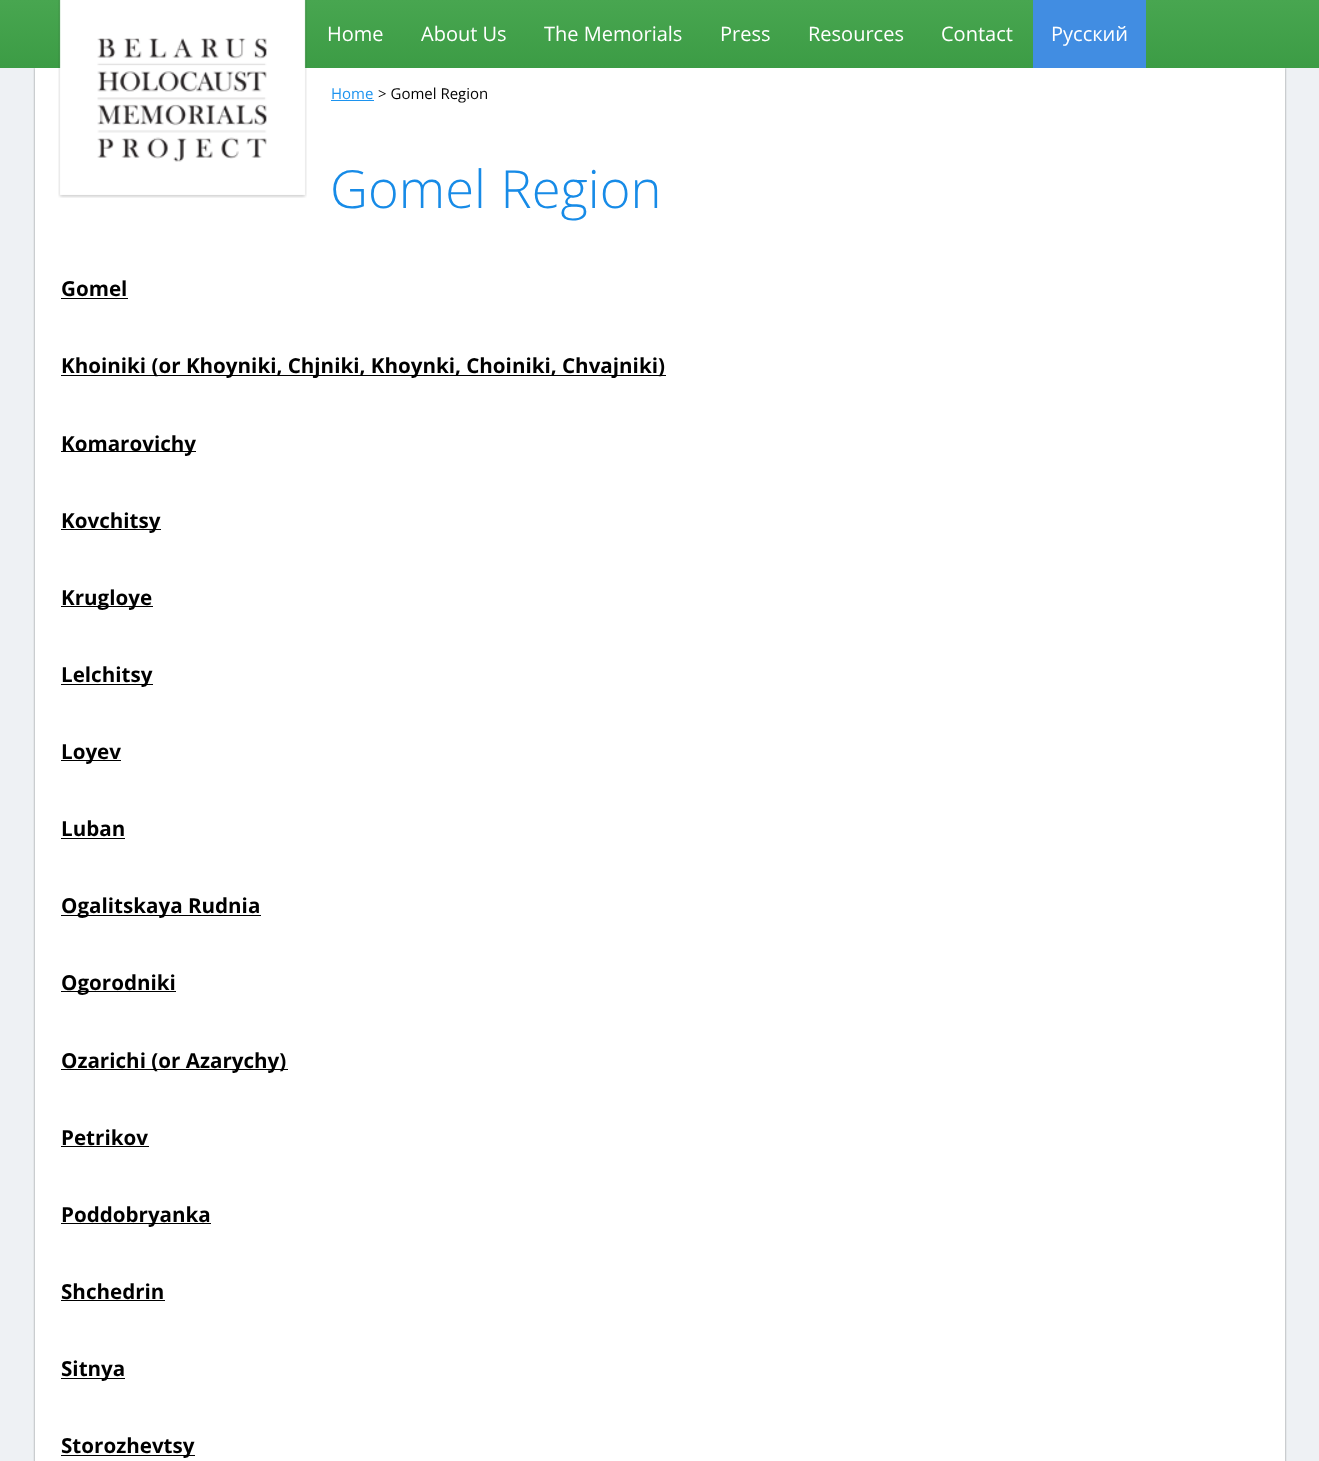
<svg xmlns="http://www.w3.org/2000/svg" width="1319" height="1461">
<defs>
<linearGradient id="g1" gradientUnits="userSpaceOnUse" x1="660" y1="0" x2="660" y2="68"><stop offset="0" stop-color="#48a650"/><stop offset="1" stop-color="#3c9c45"/></linearGradient>
</defs>
<rect width="100%" height="100%" fill="#eef1f4"/>
<rect x="35" y="68" width="1250" height="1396" fill="#00000073" filter="blur(1px)"/>
<rect width="1319" height="68" fill="url(#g1)"/>
<rect x="35" y="68" width="1250" height="1393" fill="#fff"/>
<image x="58" y="0" width="249" height="198" href="media/1.png"/>
<text x="327" y="41" style="font-family:Open Sans;font-size:20px;fill:#fff">Home</text>
<text x="421" y="41" style="font-family:Open Sans;font-size:20px;fill:#fff">About Us</text>
<text x="544" y="41" style="font-family:Open Sans;font-size:20px;fill:#fff">The Memorials</text>
<text x="720" y="41" style="font-family:Open Sans;font-size:20px;fill:#fff">Press</text>
<text x="808" y="41" style="font-family:Open Sans;font-size:20px;fill:#fff">Resources</text>
<text x="941" y="41" style="font-family:Open Sans;font-size:20px;fill:#fff">Contact</text>
<rect x="1033" width="113" height="68" fill="#418de2"/>
<text x="1051" y="41" style="font-family:Open Sans;font-size:20px;fill:#fff">Русский</text>
<text x="331" y="99" style="font-family:Open Sans;font-size:15px;fill:#1c93ef">Home</text>
<rect x="331" y="100" width="43" height="1" fill="#1c93ef"/>
<text x="378" y="99" style="font-family:Open Sans;font-size:15px;fill:#000">&gt; Gomel Region</text>
<text x="330" y="208" word-spacing="1" style="font-family:Open Sans;font-size:52.5px;font-weight:300;fill:#178be7">Gomel Region</text>
<text x="61" y="296" style="font-family:Open Sans;font-size:20.6px;font-weight:bold;fill:#000">Gomel</text>
<rect x="61" y="298" width="67" height="1" fill="#000"/>
<rect x="61" y="375" width="605" height="1" fill="#000"/>
<text x="61" y="373" style="font-family:Open Sans;font-size:20.6px;font-weight:bold;fill:#000">Khoiniki (or Khoyniki, Chjniki, Khoynki, Choiniki, Chvajniki)</text>
<rect x="61" y="451" width="135" height="1" fill="#000"/>
<text x="61" y="451" style="font-family:Open Sans;font-size:20.6px;font-weight:bold;fill:#000">Komarovichy</text>
<rect x="61" y="529" width="100" height="1" fill="#000"/>
<text x="61" y="528" style="font-family:Open Sans;font-size:20.6px;font-weight:bold;fill:#000">Kovchitsy</text>
<rect x="61" y="606" width="92" height="1" fill="#000"/>
<text x="61" y="605" style="font-family:Open Sans;font-size:20.6px;font-weight:bold;fill:#000">Krugloye</text>
<rect x="61" y="684" width="92" height="1" fill="#000"/>
<text x="61" y="682" style="font-family:Open Sans;font-size:20.6px;font-weight:bold;fill:#000">Lelchitsy</text>
<rect x="61" y="760" width="60" height="1" fill="#000"/>
<text x="61" y="759" style="font-family:Open Sans;font-size:20.6px;font-weight:bold;fill:#000">Loyev</text>
<text x="61" y="836" style="font-family:Open Sans;font-size:20.6px;font-weight:bold;fill:#000">Luban</text>
<rect x="61" y="838" width="64" height="1" fill="#000"/>
<rect x="61" y="915" width="200" height="1" fill="#000"/>
<text x="61" y="913" style="font-family:Open Sans;font-size:20.6px;font-weight:bold;fill:#000">Ogalitskaya Rudnia</text>
<rect x="61" y="991" width="115" height="1" fill="#000"/>
<text x="61" y="990" style="font-family:Open Sans;font-size:20.6px;font-weight:bold;fill:#000">Ogorodniki</text>
<rect x="61" y="1069" width="227" height="1" fill="#000"/>
<text x="61" y="1068" style="font-family:Open Sans;font-size:20.6px;font-weight:bold;fill:#000">Ozarichi (or Azarychy)</text>
<text x="61" y="1145" style="font-family:Open Sans;font-size:20.6px;font-weight:bold;fill:#000">Petrikov</text>
<rect x="61" y="1146" width="88" height="1" fill="#000"/>
<rect x="61" y="1223" width="150" height="1" fill="#000"/>
<text x="61" y="1222" style="font-family:Open Sans;font-size:20.6px;font-weight:bold;fill:#000">Poddobryanka</text>
<text x="61" y="1299" style="font-family:Open Sans;font-size:20.6px;font-weight:bold;fill:#000">Shchedrin</text>
<rect x="61" y="1300" width="104" height="1" fill="#000"/>
<rect x="61" y="1378" width="64" height="1" fill="#000"/>
<text x="61" y="1376" style="font-family:Open Sans;font-size:20.6px;font-weight:bold;fill:#000">Sitnya</text>
<rect x="61" y="1455" width="134" height="1" fill="#000"/>
<text x="61" y="1453" style="font-family:Open Sans;font-size:20.6px;font-weight:bold;fill:#000">Storozhevtsy</text>
</svg>
